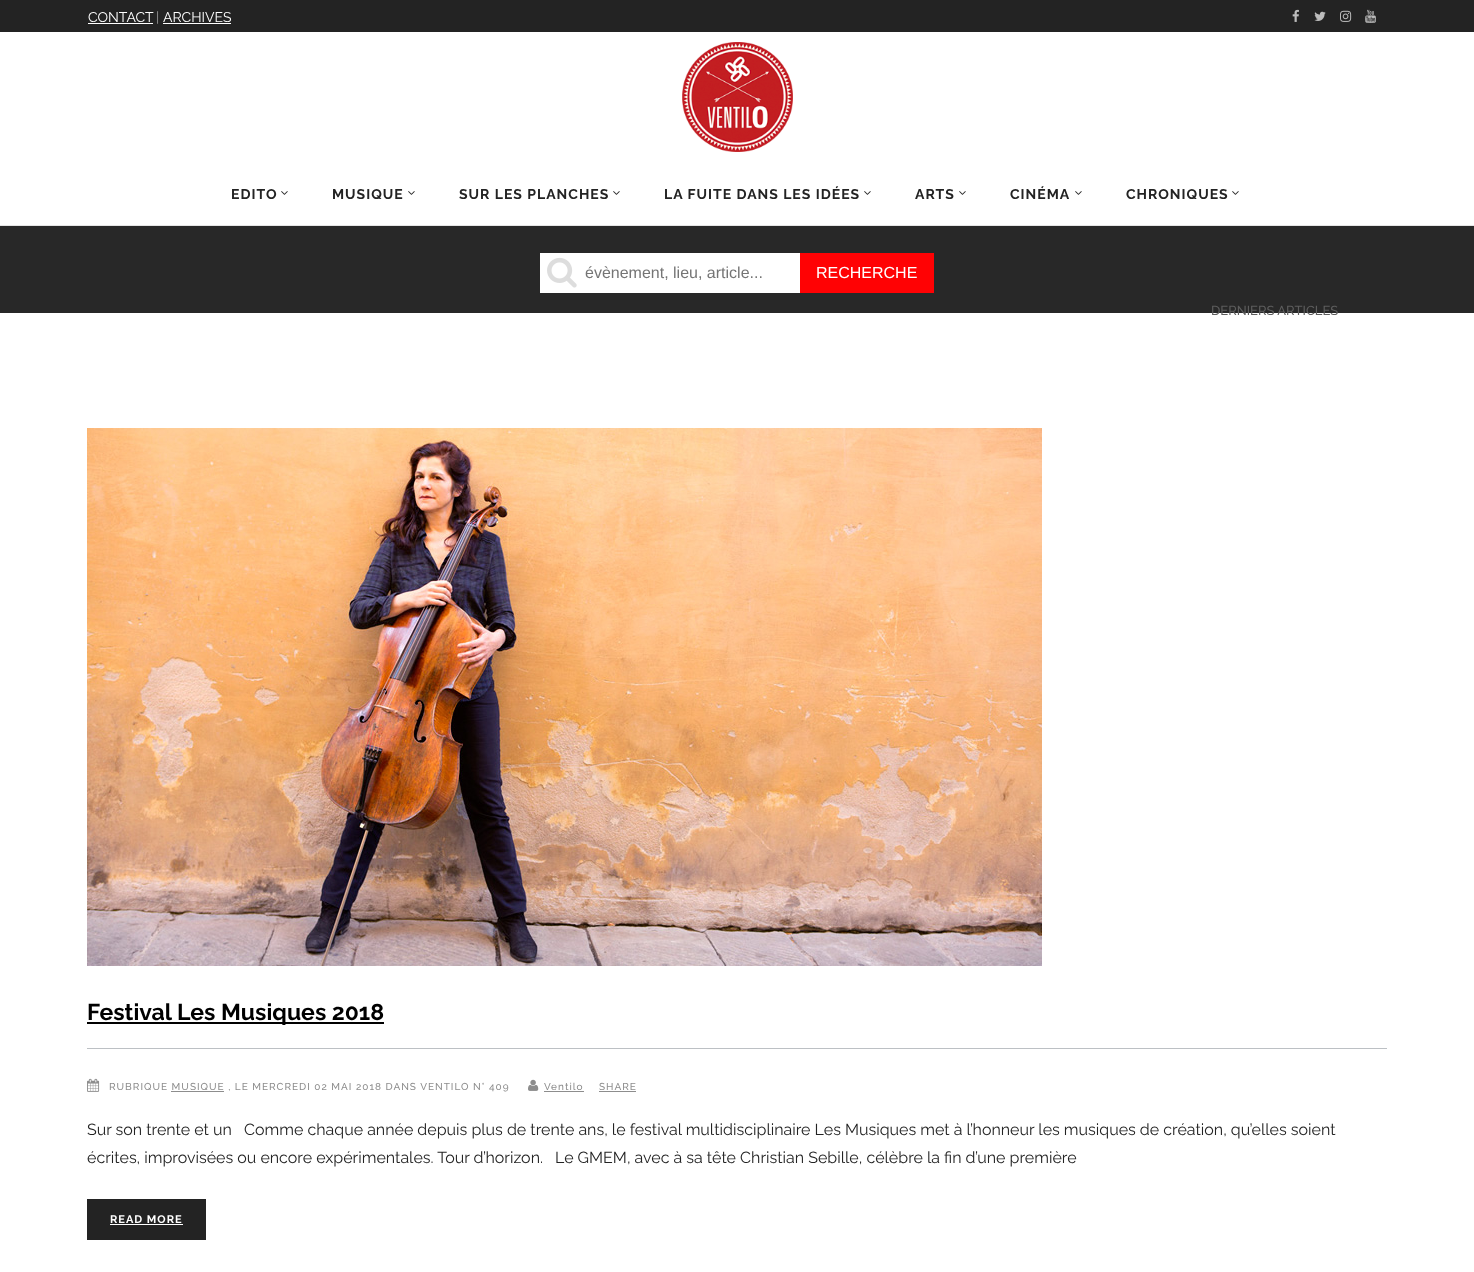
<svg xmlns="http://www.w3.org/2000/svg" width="1474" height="1272">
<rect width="100%" height="100%" fill="#fff"/>
<rect width="1474" height="32" fill="#232323"/>
<text x="88" y="22" style="font-family:Raleway;font-size:14px;fill:#fff">CONTACT</text>
<rect x="88" y="23" width="65" height="1" fill="#fff"/>
<text x="156" y="22" style="font-family:Raleway;font-size:14px;fill:#999">|</text>
<text x="163" y="22" style="font-family:Raleway;font-size:14px;fill:#fff">ARCHIVES</text>
<rect x="163" y="23" width="68" height="1" fill="#fff"/>
<image x="1292" y="9" width="7" height="13" href="media/1.png"/>
<image x="1314" y="11" width="12" height="10" href="media/2.png"/>
<image x="1340" y="10" width="12" height="12" href="media/3.png"/>
<image x="1365" y="9" width="11" height="14" href="media/4.png"/>
<rect y="225" width="1474" height="1" fill="#e5e5e5"/>
<image x="682" y="42" width="111" height="110" href="media/5.png"/>
<text x="231" y="199" style="font-family:Raleway;font-size:14px;font-weight:bold;letter-spacing:1px;fill:#232323">EDITO</text>
<image x="281" y="191" width="7" height="4" href="media/6.png"/>
<text x="332" y="199" style="font-family:Raleway;font-size:14px;font-weight:bold;letter-spacing:1px;fill:#232323">MUSIQUE</text>
<image x="408" y="191" width="7" height="4" href="media/6.png"/>
<text x="459" y="199" style="font-family:Raleway;font-size:14px;font-weight:bold;letter-spacing:1px;fill:#232323">SUR LES PLANCHES</text>
<image x="613" y="191" width="7" height="4" href="media/6.png"/>
<text x="664" y="199" style="font-family:Raleway;font-size:14px;font-weight:bold;letter-spacing:1px;fill:#232323">LA FUITE DANS LES IDÉES</text>
<image x="864" y="191" width="7" height="4" href="media/6.png"/>
<text x="915" y="199" style="font-family:Raleway;font-size:14px;font-weight:bold;letter-spacing:1px;fill:#232323">ARTS</text>
<image x="959" y="191" width="7" height="4" href="media/6.png"/>
<text x="1010" y="199" style="font-family:Raleway;font-size:14px;font-weight:bold;letter-spacing:1px;fill:#232323">CINÉMA</text>
<image x="1075" y="191" width="7" height="4" href="media/6.png"/>
<text x="1126" y="199" style="font-family:Raleway;font-size:14px;font-weight:bold;letter-spacing:1px;fill:#232323">CHRONIQUES</text>
<image x="1232" y="191" width="7" height="4" href="media/6.png"/>
<rect y="226" width="1474" height="87" fill="#282828"/>
<text x="1211" y="315" style="font-family:Raleway;font-size:13px;font-weight:500;fill:#5d5d5d">DERNIERS ARTICLES</text>
<rect x="540" y="253" width="260" height="40" fill="#fff"/>
<image x="547" y="257" width="30" height="31" href="media/7.png"/>
<text x="585" y="278" style="font-family:Liberation Sans;font-size:16px;fill:#757575">évènement, lieu, article...</text>
<rect x="800" y="253" width="134" height="40" fill="#ff0204"/>
<text x="816" y="278" style="font-family:Liberation Sans;font-size:16px;fill:#fff">RECHERCHE</text>
<image x="87" y="428" width="955" height="538" href="media/8.png"/>
<rect x="87" y="1022" width="297" height="2" fill="#000"/>
<text x="87" y="1020" style="font-family:Raleway;font-size:23px;font-weight:bold;fill:#000">Festival Les Musiques 2018</text>
<rect x="87" y="1048" width="1300" height="1" fill="#bcc0c4"/>
<image x="87" y="1078" width="13" height="14" href="media/9.png"/>
<text x="109" y="1090" style="font-family:Raleway;font-size:10px;font-weight:500;letter-spacing:1px;fill:#8d8d8d">RUBRIQUE MUSIQUE , LE MERCREDI 02 MAI 2018 DANS VENTILO N° 409</text>
<rect x="171" y="1091" width="53" height="1" fill="#8d8d8d"/>
<image x="528" y="1079" width="11" height="12" href="media/10.png"/>
<text x="544" y="1090" style="font-family:Raleway;font-size:10px;font-weight:500;letter-spacing:1px;fill:#8d8d8d">Ventilo</text>
<rect x="544" y="1091" width="40" height="1" fill="#8d8d8d"/>
<text x="599" y="1090" style="font-family:Raleway;font-size:10px;font-weight:500;letter-spacing:1px;fill:#8d8d8d">SHARE</text>
<rect x="599" y="1091" width="37" height="1" fill="#8d8d8d"/>
<text x="87" y="1135" style="font-family:Raleway;font-size:16px;fill:#232323" xml:space="preserve">Sur son trente et un   Comme chaque année depuis plus de trente ans, le festival multidisciplinaire Les Musiques met à l’honneur les musiques de création, qu’elles soient</text>
<text x="87" y="1163" style="font-family:Raleway;font-size:16px;fill:#232323">écrites, improvisées ou encore expérimentales. Tour d’horizon.</text>
<text x="555" y="1163" style="font-family:Raleway;font-size:16px;fill:#232323">Le GMEM, avec à sa tête Christian Sebille, célèbre la fin d’une première</text>
<rect x="87" y="1199" width="119" height="41" fill="#232323"/>
<text x="110" y="1223" style="font-family:Raleway;font-size:11px;font-weight:bold;letter-spacing:1px;fill:#fff">READ MORE</text>
<rect x="110" y="1224" width="73" height="1" fill="#fff"/>
</svg>
